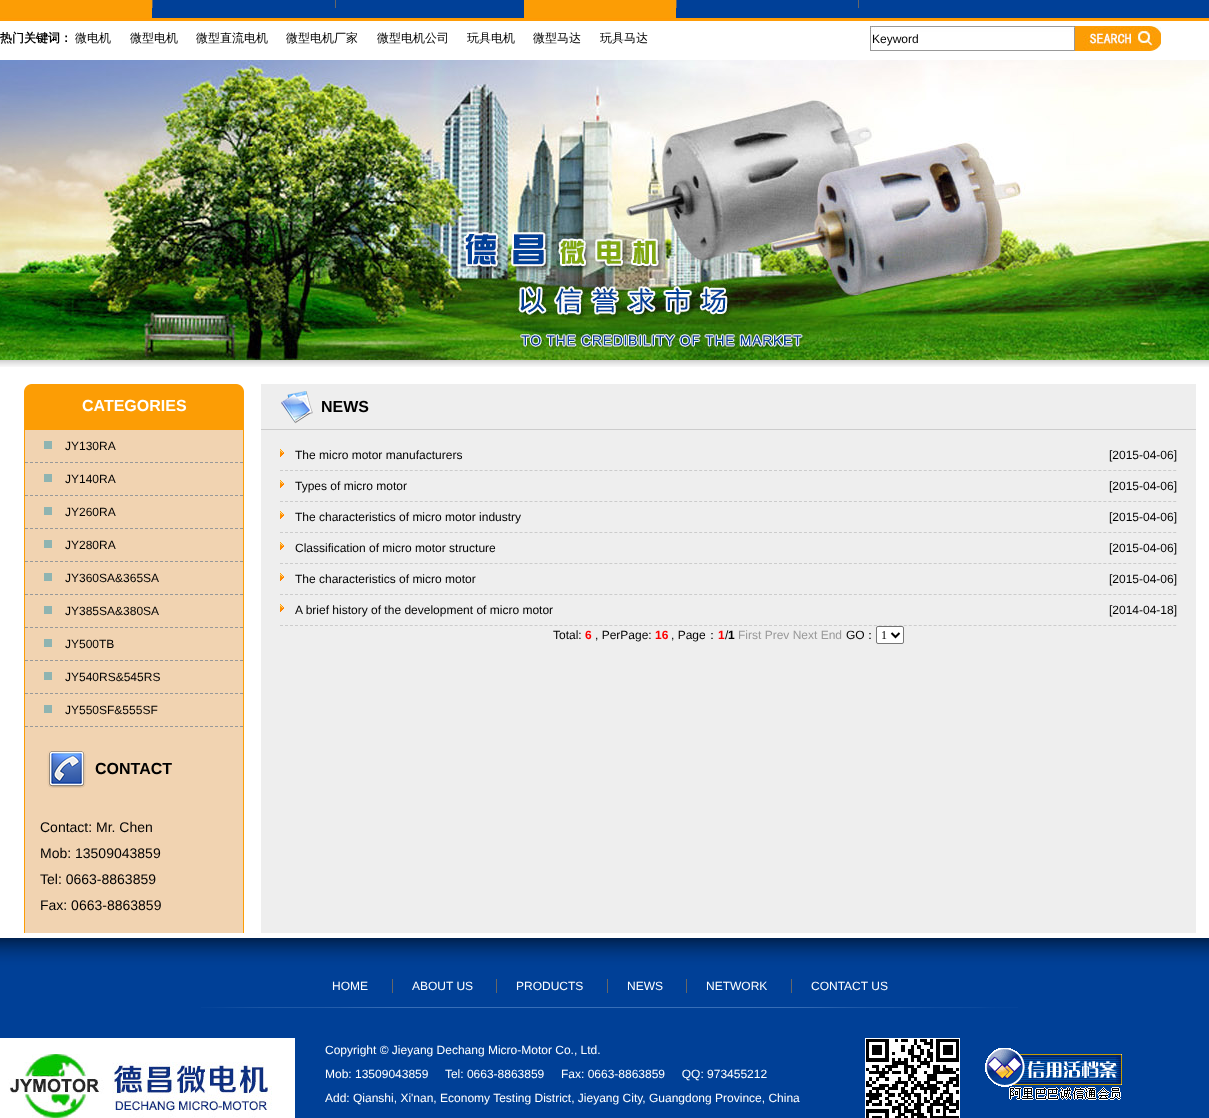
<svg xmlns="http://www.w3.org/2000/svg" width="1209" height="1118">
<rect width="100%" height="100%" fill="#fff"/>
<image x="0" y="0" width="1209" height="21" href="media/1.png"/>
<rect width="152" height="18" fill="#fc9d05"/>
<rect x="152" width="1" height="8" fill="#666"/>
<rect x="335" width="1" height="8" fill="#666"/>
<rect x="524" width="152" height="18" fill="#fc9d05"/>
<rect x="676" width="1" height="8" fill="#666"/>
<rect x="858" width="1" height="8" fill="#666"/>
<text x="0" y="42" style="font-family:WenQuanYi Zen Hei;font-size:12px;font-weight:bold;fill:#000">热门关键词：</text>
<text x="75" y="42" style="font-family:WenQuanYi Zen Hei;font-size:12px;font-weight:500;fill:#000">微电机</text>
<text x="130" y="42" style="font-family:WenQuanYi Zen Hei;font-size:12px;font-weight:500;fill:#000">微型电机</text>
<text x="196" y="42" style="font-family:WenQuanYi Zen Hei;font-size:12px;font-weight:500;fill:#000">微型直流电机</text>
<text x="286" y="42" style="font-family:WenQuanYi Zen Hei;font-size:12px;font-weight:500;fill:#000">微型电机厂家</text>
<text x="377" y="42" style="font-family:WenQuanYi Zen Hei;font-size:12px;font-weight:500;fill:#000">微型电机公司</text>
<text x="467" y="42" style="font-family:WenQuanYi Zen Hei;font-size:12px;font-weight:500;fill:#000">玩具电机</text>
<text x="533" y="42" style="font-family:WenQuanYi Zen Hei;font-size:12px;font-weight:500;fill:#000">微型马达</text>
<text x="600" y="42" style="font-family:WenQuanYi Zen Hei;font-size:12px;font-weight:500;fill:#000">玩具马达</text>
<image x="870" y="26" width="205" height="25" href="media/2.png"/>
<text x="872" y="43" style="font-family:Liberation Sans;font-size:12px;fill:#000">Keyword</text>
<image x="1075" y="26" width="86" height="25" href="media/3.png"/>
<image x="0" y="60" width="1209" height="300" href="media/4.png"/>
<image x="0" y="360" width="1209" height="7" href="media/5.png"/>
<image x="24" y="384" width="220" height="43" href="media/6.png"/>
<text x="82" y="411" style="font-family:Liberation Sans;font-size:16px;font-weight:bold;fill:#fff">CATEGORIES</text>
<rect x="25" y="430" width="218" height="503" fill="#f1d3b1"/>
<rect x="24" y="427" width="220" height="3" fill="#fc9d05"/>
<rect x="243" y="427" width="1" height="506" fill="#fc9d05"/>
<rect x="24" y="427" width="1" height="506" fill="#fc9d05"/>
<path d="M25 462.5h218" fill="none" stroke="#999" stroke-dasharray="3 2"/>
<rect x="44" y="441" width="8" height="8" fill="#8fb4b1"/>
<text x="65" y="450" style="font-family:Liberation Sans;font-size:12px;fill:#000">JY130RA</text>
<path d="M25 495.5h218" fill="none" stroke="#999" stroke-dasharray="3 2"/>
<rect x="44" y="474" width="8" height="8" fill="#8fb4b1"/>
<text x="65" y="483" style="font-family:Liberation Sans;font-size:12px;fill:#000">JY140RA</text>
<path d="M25 528.5h218" fill="none" stroke="#999" stroke-dasharray="3 2"/>
<rect x="44" y="507" width="8" height="8" fill="#8fb4b1"/>
<text x="65" y="516" style="font-family:Liberation Sans;font-size:12px;fill:#000">JY260RA</text>
<path d="M25 561.5h218" fill="none" stroke="#999" stroke-dasharray="3 2"/>
<rect x="44" y="540" width="8" height="8" fill="#8fb4b1"/>
<text x="65" y="549" style="font-family:Liberation Sans;font-size:12px;fill:#000">JY280RA</text>
<path d="M25 594.5h218" fill="none" stroke="#999" stroke-dasharray="3 2"/>
<rect x="44" y="573" width="8" height="8" fill="#8fb4b1"/>
<text x="65" y="582" style="font-family:Liberation Sans;font-size:12px;fill:#000">JY360SA&amp;365SA</text>
<path d="M25 627.5h218" fill="none" stroke="#999" stroke-dasharray="3 2"/>
<rect x="44" y="606" width="8" height="8" fill="#8fb4b1"/>
<text x="65" y="615" style="font-family:Liberation Sans;font-size:12px;fill:#000">JY385SA&amp;380SA</text>
<path d="M25 660.5h218" fill="none" stroke="#999" stroke-dasharray="3 2"/>
<rect x="44" y="639" width="8" height="8" fill="#8fb4b1"/>
<text x="65" y="648" style="font-family:Liberation Sans;font-size:12px;fill:#000">JY500TB</text>
<path d="M25 693.5h218" fill="none" stroke="#999" stroke-dasharray="3 2"/>
<rect x="44" y="672" width="8" height="8" fill="#8fb4b1"/>
<text x="65" y="681" style="font-family:Liberation Sans;font-size:12px;fill:#000">JY540RS&amp;545RS</text>
<path d="M25 726.5h218" fill="none" stroke="#999" stroke-dasharray="3 2"/>
<rect x="44" y="705" width="8" height="8" fill="#8fb4b1"/>
<text x="65" y="714" style="font-family:Liberation Sans;font-size:12px;fill:#000">JY550SF&amp;555SF</text>
<image x="47" y="751" width="39" height="37" href="media/7.png"/>
<text x="95" y="774" style="font-family:Liberation Sans;font-size:16px;font-weight:bold;fill:#000">CONTACT</text>
<text x="40" y="832" style="font-family:Liberation Sans;font-size:14px;fill:#000">Contact: Mr. Chen</text>
<text x="40" y="858" style="font-family:Liberation Sans;font-size:14px;fill:#000">Mob: 13509043859</text>
<text x="40" y="884" style="font-family:Liberation Sans;font-size:14px;fill:#000">Tel: 0663-8863859</text>
<text x="40" y="910" style="font-family:Liberation Sans;font-size:14px;fill:#000">Fax: 0663-8863859</text>
<rect x="261" y="384" width="935" height="549" fill="#eee"/>
<image x="281" y="391" width="32" height="33" href="media/8.png"/>
<rect x="261" y="429" width="935" height="1" fill="#ccc"/>
<text x="321" y="412" style="font-family:Liberation Sans;font-size:16px;font-weight:bold;fill:#000">NEWS</text>
<path d="M280 470.5h897" fill="none" stroke="#ccc" stroke-dasharray="3 1.99"/>
<image x="280" y="449" width="4" height="8" href="media/9.png"/>
<text x="295" y="459" style="font-family:Liberation Sans;font-size:12px;fill:#000">The micro motor manufacturers</text>
<text x="1109" y="459" style="font-family:Liberation Sans;font-size:12px;fill:#000">[2015-04-06]</text>
<path d="M280 501.5h897" fill="none" stroke="#ccc" stroke-dasharray="3 1.99"/>
<image x="280" y="480" width="4" height="8" href="media/9.png"/>
<text x="295" y="490" style="font-family:Liberation Sans;font-size:12px;fill:#000">Types of micro motor</text>
<text x="1109" y="490" style="font-family:Liberation Sans;font-size:12px;fill:#000">[2015-04-06]</text>
<path d="M280 532.5h897" fill="none" stroke="#ccc" stroke-dasharray="3 1.99"/>
<image x="280" y="511" width="4" height="8" href="media/9.png"/>
<text x="295" y="521" style="font-family:Liberation Sans;font-size:12px;fill:#000">The characteristics of micro motor industry</text>
<text x="1109" y="521" style="font-family:Liberation Sans;font-size:12px;fill:#000">[2015-04-06]</text>
<path d="M280 563.5h897" fill="none" stroke="#ccc" stroke-dasharray="3 1.99"/>
<image x="280" y="542" width="4" height="8" href="media/9.png"/>
<text x="295" y="552" style="font-family:Liberation Sans;font-size:12px;fill:#000">Classification of micro motor structure</text>
<text x="1109" y="552" style="font-family:Liberation Sans;font-size:12px;fill:#000">[2015-04-06]</text>
<path d="M280 594.5h897" fill="none" stroke="#ccc" stroke-dasharray="3 1.99"/>
<image x="280" y="573" width="4" height="8" href="media/9.png"/>
<text x="295" y="583" style="font-family:Liberation Sans;font-size:12px;fill:#000">The characteristics of micro motor</text>
<text x="1109" y="583" style="font-family:Liberation Sans;font-size:12px;fill:#000">[2015-04-06]</text>
<path d="M280 625.5h897" fill="none" stroke="#ccc" stroke-dasharray="3 1.99"/>
<image x="280" y="604" width="4" height="8" href="media/9.png"/>
<text x="295" y="614" style="font-family:Liberation Sans;font-size:12px;fill:#000">A brief history of the development of micro motor</text>
<text x="1109" y="614" style="font-family:Liberation Sans;font-size:12px;fill:#000">[2014-04-18]</text>
<text x="553" y="639" style="font-family:Liberation Sans;font-size:12px;fill:#000">Total:</text>
<text x="585" y="639" style="font-family:Liberation Sans;font-size:12px;font-weight:bold;fill:#f00">6</text>
<text x="595" y="639" style="font-family:Liberation Sans;font-size:12px;fill:#000">, PerPage:</text>
<text x="655" y="639" style="font-family:Liberation Sans;font-size:12px;font-weight:bold;fill:#f00">16</text>
<text x="671" y="639" style="font-family:Liberation Sans;font-size:12px;fill:#000">, Page</text>
<text x="706" y="639" style="font-family:WenQuanYi Zen Hei;font-size:12px;font-weight:500;fill:#000">：</text>
<text x="718" y="639" style="font-family:Liberation Sans;font-size:12px;font-weight:bold;fill:#f00">1</text>
<text x="725" y="639" style="font-family:Liberation Sans;font-size:12px;fill:#000">/</text>
<text x="728" y="639" style="font-family:Liberation Sans;font-size:12px;font-weight:bold;fill:#000">1</text>
<text x="738" y="639" style="font-family:Liberation Sans;font-size:12px;fill:#999">First Prev Next End</text>
<text x="846" y="639" style="font-family:Liberation Sans;font-size:12px;fill:#000">GO</text>
<text x="864" y="639" style="font-family:WenQuanYi Zen Hei;font-size:12px;font-weight:500;fill:#000">：</text>
<rect x="876.5" y="626.5" width="27" height="17" rx="1.5" fill="#fff" stroke="#767676"/>
<path d="M891.5 633l4 4l4-4" fill="none" stroke="#000" stroke-width="2"/>
<text x="881" y="639" style="font-family:Liberation Serif;font-size:12px;fill:#000">1</text>
<image x="0" y="938" width="1209" height="180" href="media/10.png"/>
<image x="201" y="1007" width="817" height="1" href="media/11.png"/>
<text x="332" y="990" style="font-family:Liberation Sans;font-size:12px;fill:#fff">HOME</text>
<text x="412" y="990" style="font-family:Liberation Sans;font-size:12px;fill:#fff">ABOUT US</text>
<rect x="392" y="979" width="1" height="14" fill="#666"/>
<text x="516" y="990" style="font-family:Liberation Sans;font-size:12px;fill:#fff">PRODUCTS</text>
<rect x="496" y="979" width="1" height="14" fill="#666"/>
<text x="627" y="990" style="font-family:Liberation Sans;font-size:12px;fill:#fff">NEWS</text>
<rect x="607" y="979" width="1" height="14" fill="#666"/>
<text x="706" y="990" style="font-family:Liberation Sans;font-size:12px;fill:#fff">NETWORK</text>
<rect x="686" y="979" width="1" height="14" fill="#666"/>
<text x="811" y="990" style="font-family:Liberation Sans;font-size:12px;fill:#fff">CONTACT US</text>
<rect x="791" y="979" width="1" height="14" fill="#666"/>
<image x="0" y="1038" width="295" height="80" href="media/12.png"/>
<text x="325" y="1054" style="font-family:Liberation Sans;font-size:12px;fill:#fff">Copyright © Jieyang Dechang Micro-Motor Co., Ltd.</text>
<text x="325" y="1078" style="font-family:Liberation Sans;font-size:12px;fill:#fff" xml:space="preserve">Mob: 13509043859     Tel: 0663-8863859     Fax: 0663-8863859     QQ: 973455212</text>
<text x="325" y="1102" style="font-family:Liberation Sans;font-size:12px;fill:#fff">Add: Qianshi, Xi'nan, Economy Testing District, Jieyang City, Guangdong Province, China</text>
<image x="865" y="1038" width="95" height="80" href="media/13.png"/>
<image x="985" y="1048" width="137" height="52" href="media/14.png"/>
</svg>
